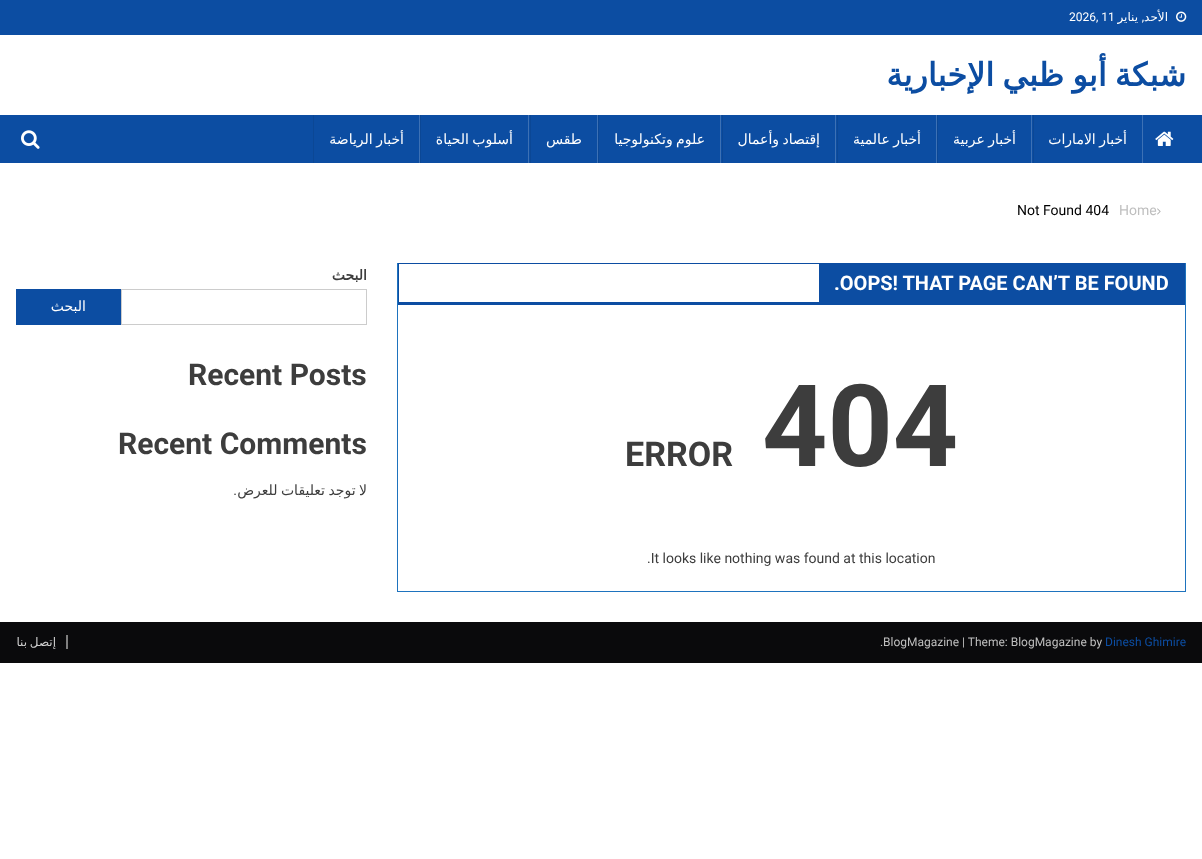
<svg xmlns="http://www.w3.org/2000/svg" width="1202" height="859">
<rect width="100%" height="100%" fill="#fff"/>
<rect width="1202" height="35" fill="#0c4da2"/>
<text x="1069" y="21" style="font-family:Roboto;font-size:12px;fill:#fff">2026, 11</text>
<text x="1138" y="21" style="font-family:DejaVu Sans;font-size:12px;direction:rtl;fill:#fff">يناير</text>
<text x="1144" y="21" style="font-family:Roboto;font-size:12px;direction:rtl;fill:#fff">,</text>
<text x="1168" y="21" style="font-family:DejaVu Sans;font-size:12px;direction:rtl;fill:#fff">الأحد</text>
<image x="1176" y="11" width="11" height="11" href="media/1.png"/>
<text x="1186" y="86" word-spacing="-2" style="font-family:DejaVu Sans;font-size:32px;font-weight:bold;direction:rtl;fill:#0c4da2">شبكة أبو ظبي الإخبارية</text>
<rect y="115" width="1202" height="48" fill="#0c4da2"/>
<image x="21" y="130" width="19" height="19" href="media/2.png"/>
<rect x="419" y="115" width="1" height="48" fill="#3d71b5"/>
<rect x="313" y="115" width="1" height="48" fill="#0b4795"/>
<text x="404" y="144" word-spacing="-1" style="font-family:DejaVu Sans;font-size:14px;direction:rtl;fill:#fff">أخبار الرياضة</text>
<rect x="528" y="115" width="1" height="48" fill="#3d71b5"/>
<rect x="420" y="115" width="1" height="48" fill="#0b4795"/>
<text x="513" y="144" word-spacing="-1" style="font-family:DejaVu Sans;font-size:14px;direction:rtl;fill:#fff">أسلوب الحياة</text>
<rect x="597" y="115" width="1" height="48" fill="#3d71b5"/>
<rect x="530" y="115" width="1" height="48" fill="#0b4795"/>
<text x="582" y="144" style="font-family:DejaVu Sans;font-size:14px;direction:rtl;fill:#fff">طقس</text>
<rect x="720" y="115" width="1" height="48" fill="#3d71b5"/>
<rect x="598" y="115" width="1" height="48" fill="#0b4795"/>
<text x="705" y="144" word-spacing="-1" style="font-family:DejaVu Sans;font-size:14px;direction:rtl;fill:#fff">علوم وتكنولوجيا</text>
<rect x="835" y="115" width="1" height="48" fill="#3d71b5"/>
<rect x="722" y="115" width="1" height="48" fill="#0b4795"/>
<text x="820" y="144" word-spacing="-1" style="font-family:DejaVu Sans;font-size:14px;direction:rtl;fill:#fff">إقتصاد وأعمال</text>
<rect x="936" y="115" width="1" height="48" fill="#3d71b5"/>
<rect x="837" y="115" width="1" height="48" fill="#0b4795"/>
<text x="921" y="144" word-spacing="-1" style="font-family:DejaVu Sans;font-size:14px;direction:rtl;fill:#fff">أخبار عالمية</text>
<rect x="1031" y="115" width="1" height="48" fill="#3d71b5"/>
<rect x="937" y="115" width="1" height="48" fill="#0b4795"/>
<text x="1016" y="144" word-spacing="-1" style="font-family:DejaVu Sans;font-size:14px;direction:rtl;fill:#fff">أخبار عربية</text>
<rect x="1142" y="115" width="1" height="48" fill="#3d71b5"/>
<rect x="1033" y="115" width="1" height="48" fill="#0b4795"/>
<text x="1127" y="144" word-spacing="-1" style="font-family:DejaVu Sans;font-size:14px;direction:rtl;fill:#fff">أخبار الامارات</text>
<image x="1155" y="131" width="19" height="15" href="media/3.png"/>
<text x="1017" y="215" style="font-family:Roboto;font-size:14px;fill:#000">Not Found 404</text>
<text x="1119" y="215" style="font-family:Roboto;font-size:14px;fill:#bfbfbf">Home</text>
<image x="1157" y="208" width="4" height="7" href="media/4.png"/>
<text x="367" y="280" style="font-family:DejaVu Sans;font-size:14px;font-weight:bold;direction:rtl;fill:#3d3d3d">البحث</text>
<rect x="16" y="289" width="105" height="36" fill="#0c4da2"/>
<text x="86" y="311" style="font-family:DejaVu Sans;font-size:14px;direction:rtl;fill:#fff">البحث</text>
<rect x="121.5" y="289.5" width="245" height="35" fill="none" stroke="#ccc"/>
<text x="188" y="385" style="font-family:Roboto;font-size:30px;font-weight:bold;fill:#3d3d3d">Recent Posts</text>
<text x="118" y="454" style="font-family:Roboto;font-size:30px;font-weight:bold;fill:#3d3d3d">Recent Comments</text>
<text x="237" y="495" style="font-family:Roboto;font-size:14px;direction:rtl;fill:#3d3d3d">.</text>
<text x="367" y="495" word-spacing="-1" style="font-family:DejaVu Sans;font-size:14px;direction:rtl;fill:#3d3d3d">لا توجد تعليقات للعرض</text>
<rect x="1185" y="263" width="1" height="329" fill="#1e73be"/>
<rect x="397" y="591" width="789" height="1" fill="#1e73be"/>
<rect x="397" y="263" width="1" height="329" fill="#1e73be"/>
<rect x="398" y="263" width="787" height="1" fill="#0c4da2"/>
<rect x="1184" y="263" width="1" height="42" fill="#0c4da2"/>
<rect x="398" y="302" width="787" height="3" fill="#0c4da2"/>
<rect x="398" y="263" width="1" height="42" fill="#0c4da2"/>
<rect x="819" y="264" width="365" height="38" fill="#0c4da2"/>
<text x="834" y="290" style="font-family:Roboto;font-size:20px;font-weight:bold;fill:#fff">.OOPS! THAT PAGE CAN’T BE FOUND</text>
<text x="625" y="466" style="font-family:Roboto;font-size:34px;font-weight:bold;fill:#3d3d3d">ERROR</text>
<text x="762" y="466" style="font-family:Roboto;font-size:114px;font-weight:bold;fill:#3d3d3d">404</text>
<text x="647" y="563" style="font-family:Roboto;font-size:14px;fill:#3d3d3d">.It looks like nothing was found at this location</text>
<rect y="622" width="1202" height="41" fill="#0a0a0c"/>
<text x="56" y="646" word-spacing="-1" style="font-family:DejaVu Sans;font-size:12px;direction:rtl;fill:#cfcfcf">إتصل بنا</text>
<rect x="66" y="635" width="2" height="14" fill="#7f7f7f"/>
<text x="880" y="646" style="font-family:Roboto;font-size:12px;fill:#bfbfbf">.</text>
<text x="883" y="646" style="font-family:Roboto;font-size:12px;fill:#bfbfbf">BlogMagazine | Theme: BlogMagazine by</text>
<text x="1105" y="646" style="font-family:Roboto;font-size:12px;fill:#0c4da2">Dinesh Ghimire</text>
</svg>
